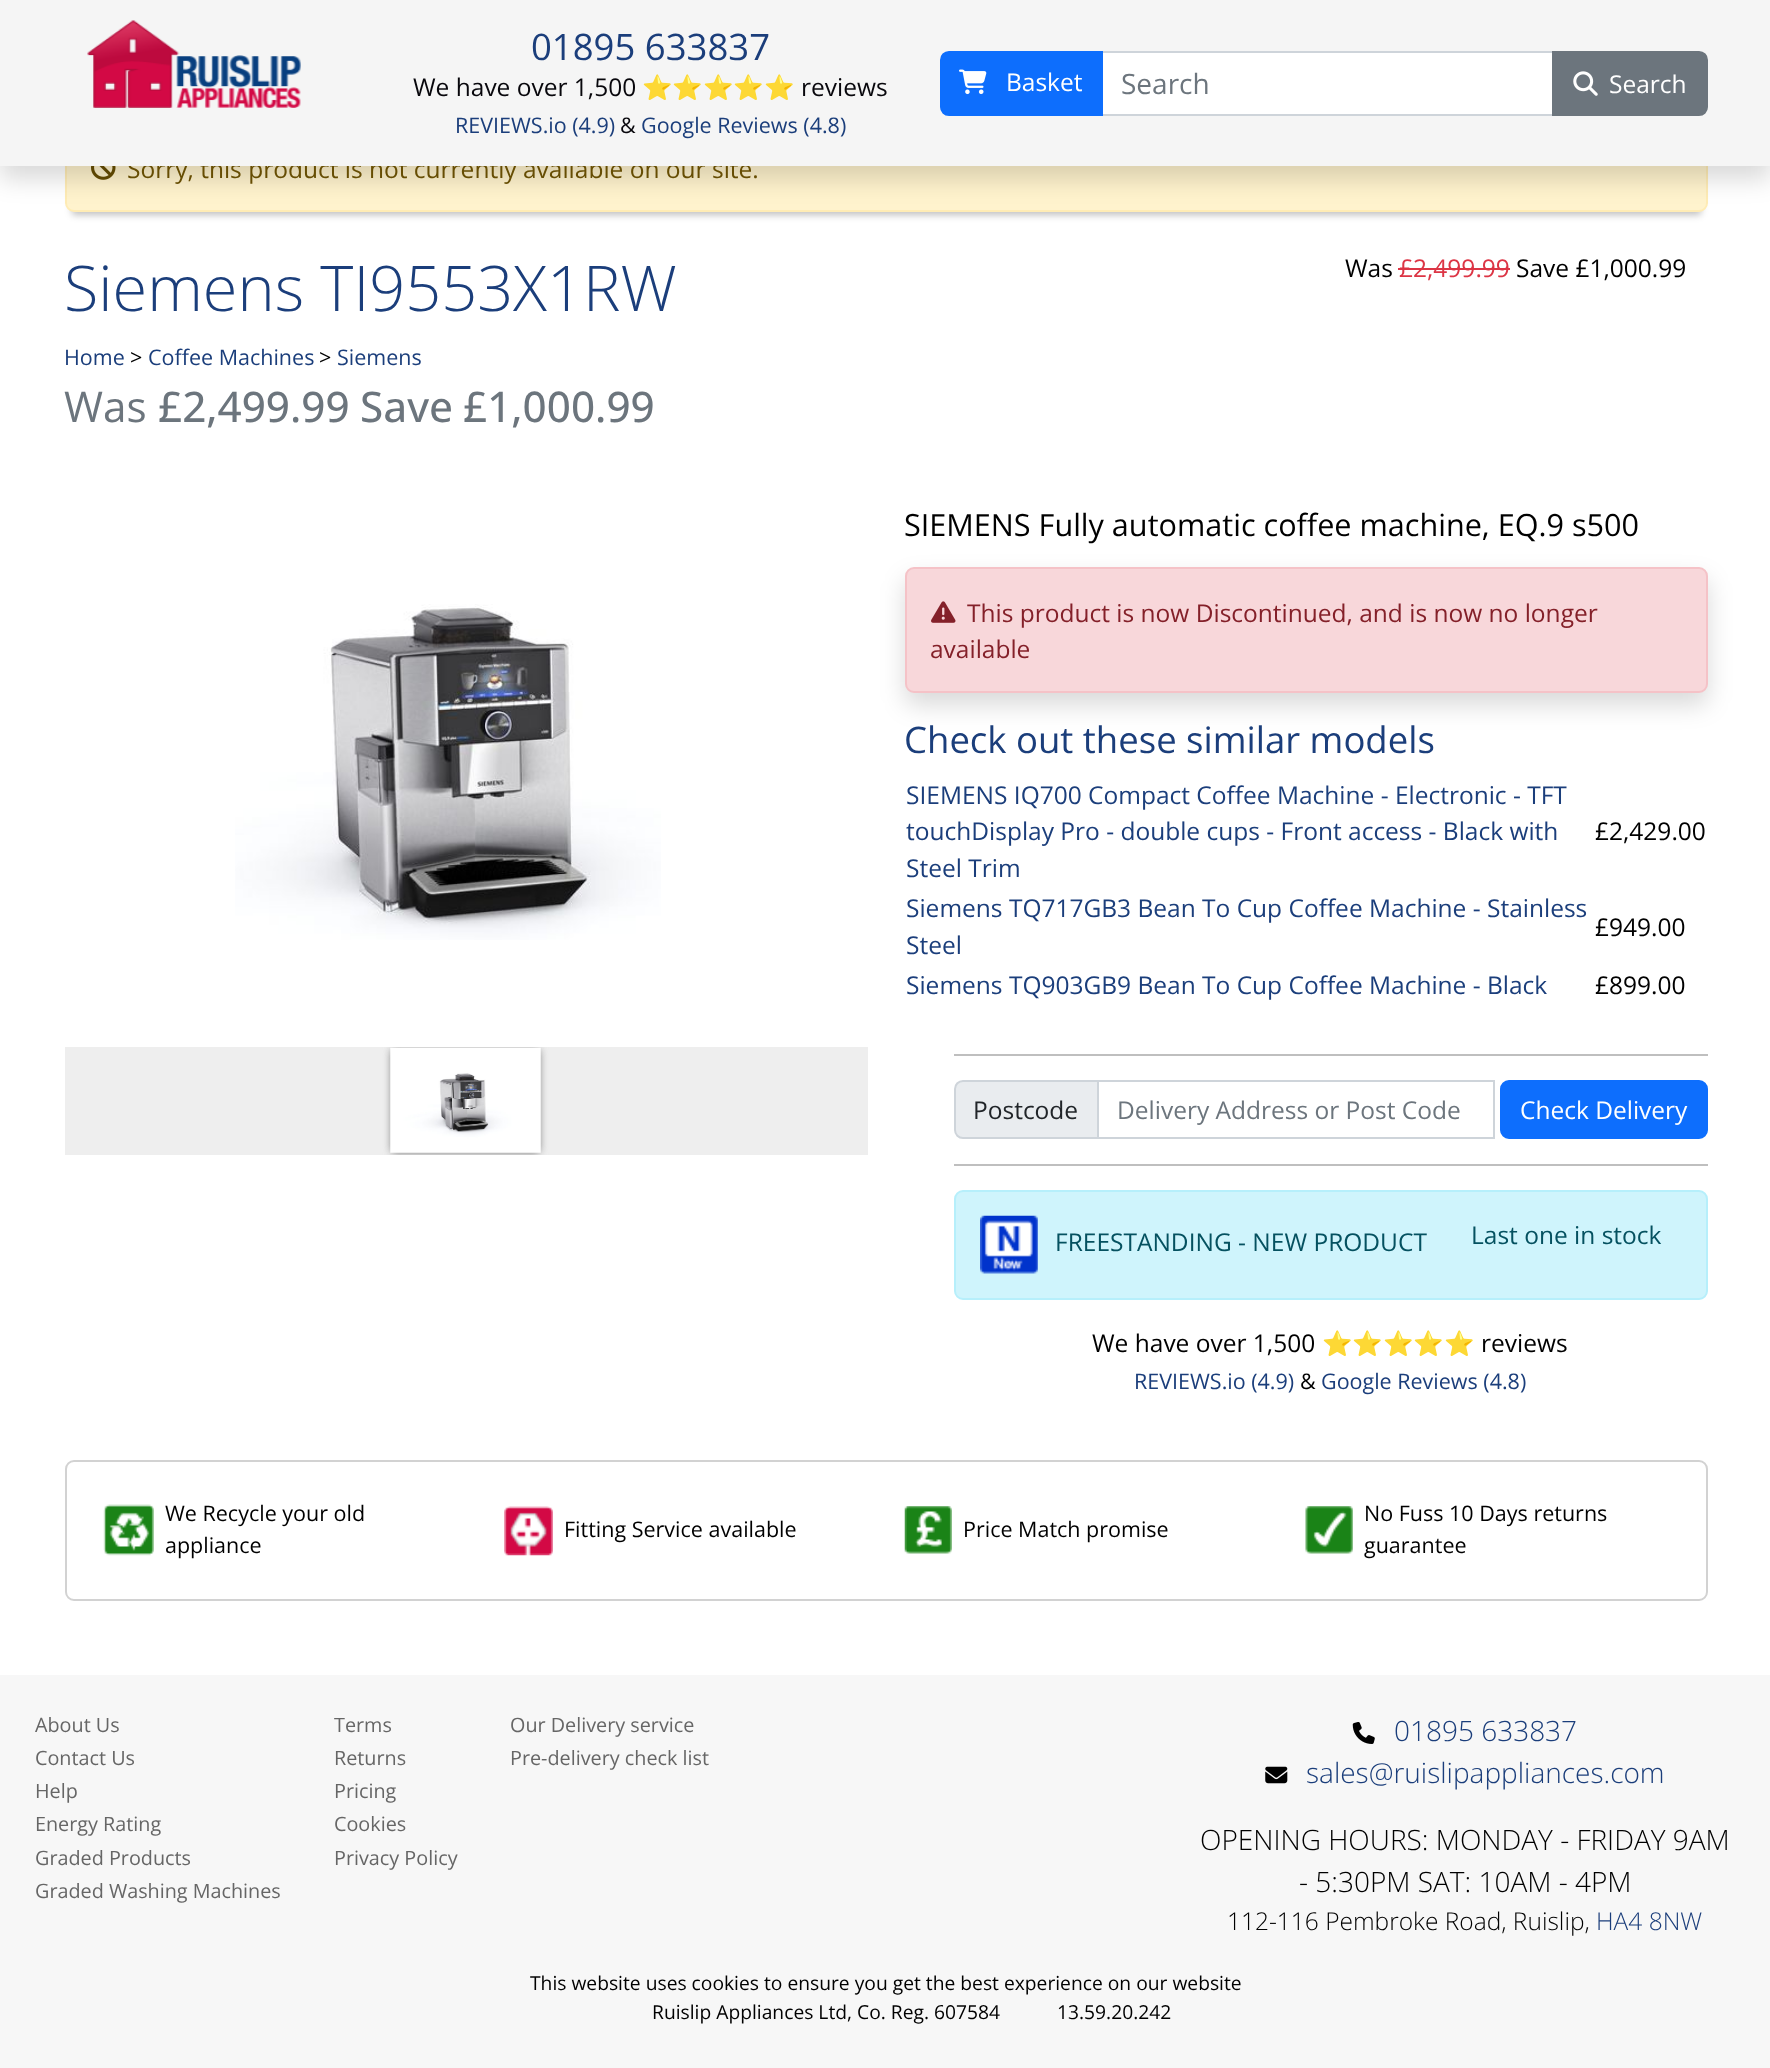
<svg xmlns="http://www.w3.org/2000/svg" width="1770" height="2068">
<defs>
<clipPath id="clip1"><rect x="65" y="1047" width="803" height="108"/></clipPath>
</defs>
<rect width="100%" height="100%" fill="#fff"/>
<rect x="72" y="140" width="1629" height="75" rx="2" fill="#00000040" filter="blur(3.5px)"/>
<rect x="66" y="124" width="1641" height="87" rx="8" fill="#fff3cd" stroke="#ffecb5" stroke-width="2"/>
<image x="91" y="166" width="25" height="14" href="media/4.png"/>
<rect y="12" width="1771" height="167" fill="#00000026" filter="blur(12px)"/>
<text x="127" y="178" style="font-family:Open Sans;font-size:24.5px;fill:#664d03">Sorry, this product is not currently available on our site.</text>
<rect width="1770" height="166" fill="#f5f5f5"/>
<image x="87" y="20" width="214" height="88" href="media/1.png"/>
<text x="531" y="60" style="font-family:Open Sans;font-size:36.5px;fill:#1b3e7b">01895 633837</text>
<text x="413" y="96" style="font-family:Open Sans;font-size:24.5px;fill:#08070c">We have over 1,500</text>
<text x="642" y="96" style="font-family:Noto Color Emoji;font-size:24.5px;fill:#08070c">⭐️⭐️⭐️⭐️⭐️</text>
<text x="801" y="96" style="font-family:Open Sans;font-size:24.5px;fill:#08070c">reviews</text>
<text x="455" y="133" style="font-family:Open Sans;font-size:21.5px;fill:#1b3e7b">REVIEWS.io (4.9)</text>
<text x="620" y="133" style="font-family:Open Sans;font-size:21.5px;fill:#08070c">&amp;</text>
<text x="641" y="133" style="font-family:Open Sans;font-size:21.5px;fill:#1b3e7b">Google Reviews (4.8)</text>
<rect x="1102" y="52" width="451" height="63" fill="#fff" stroke="#ced4da" stroke-width="2"/>
<path d="M949 52h153v63h-153c-4.5 0-8-3.5-8-8v-47c0-4.5 3.5-8 8-8z" fill="#0d6efd" stroke="#0d6efd" stroke-width="2"/>
<image x="959" y="69" width="28" height="26" href="media/2.png"/>
<text x="1006" y="91" style="font-family:Open Sans;font-size:24.5px;fill:#fff">Basket</text>
<text x="1121" y="94" style="font-family:Open Sans;font-size:28px;fill:#6c757d">Search</text>
<path d="M1553 52h146c4.5 0 8 3.5 8 8v47c0 4.5-3.5 8-8 8h-146z" fill="#6c757d" stroke="#6c757d" stroke-width="2"/>
<image x="1573" y="71" width="25" height="25" href="media/3.png"/>
<text x="1609" y="93" style="font-family:Open Sans;font-size:24.5px;fill:#fff">Search</text>
<text x="64" y="311" style="font-family:Open Sans;font-size:63px;font-weight:300;fill:#1b3e7b">Siemens TI9553X1RW</text>
<text x="64" y="365" style="font-family:Open Sans;font-size:21.5px;fill:#1b3e7b">Home</text>
<text x="130" y="365" style="font-family:Open Sans;font-size:21.5px;fill:#000">&gt;</text>
<text x="148" y="365" style="font-family:Open Sans;font-size:21.5px;fill:#1b3e7b">Coffee Machines</text>
<text x="319" y="365" style="font-family:Open Sans;font-size:21.5px;fill:#000">&gt;</text>
<text x="337" y="365" style="font-family:Open Sans;font-size:21.5px;fill:#1b3e7b">Siemens</text>
<text x="64" y="422" style="font-family:Open Sans;font-size:42.25px;fill:#6c757d">Was</text>
<text x="158" y="422" style="font-family:Open Sans;font-size:42.25px;font-weight:500;fill:#6c757d">£2,499.99</text>
<text x="360" y="422" word-spacing="-1" style="font-family:Open Sans;font-size:42.25px;font-weight:500;fill:#6c757d">Save £1,000.99</text>
<text x="1345" y="277" style="font-family:Open Sans;font-size:24.5px;fill:#000">Was</text>
<text x="1399" y="277" style="font-family:Open Sans;font-size:24.5px;fill:#dc3545">£2,499.99</text>
<rect x="1398" y="268" width="112" height="2" fill="#dc3545"/>
<text x="1516" y="277" style="font-family:Open Sans;font-size:24.5px;fill:#000">Save £1,000.99</text>
<image x="235" y="604" width="426" height="336" href="media/5.png"/>
<rect x="65" y="1047" width="803" height="108" fill="#eee"/>
<g clip-path="url(#clip1)">
<rect x="392" y="1050" width="147" height="102" fill="#666" filter="blur(4.5px)"/>
</g>
<image x="390" y="1047" width="151" height="106" href="media/6.png"/>
<text x="904" y="536" style="font-family:Open Sans;font-size:30.6px;fill:#000">SIEMENS Fully automatic coffee machine, EQ.9 s500</text>
<rect x="905" y="579" width="803" height="126" rx="9" fill="#00000026" filter="blur(12px)"/>
<rect x="906" y="568" width="801" height="124" rx="8" fill="#f8d7da" stroke="#f5c2c7" stroke-width="2"/>
<image x="931" y="601" width="25" height="22" href="media/7.png"/>
<text x="967" y="622" style="font-family:Open Sans;font-size:24.5px;fill:#842029">This product is now Discontinued, and is now no longer</text>
<text x="930" y="658" style="font-family:Open Sans;font-size:24.5px;fill:#842029">available</text>
<text x="904" y="753" style="font-family:Open Sans;font-size:36.5px;fill:#1b3e7b">Check out these similar models</text>
<text x="906" y="804" style="font-family:Open Sans;font-size:24.5px;fill:#1b3e7b">SIEMENS IQ700 Compact Coffee Machine - Electronic - TFT</text>
<text x="906" y="840" style="font-family:Open Sans;font-size:24.5px;fill:#1b3e7b">touchDisplay Pro - double cups - Front access - Black with</text>
<text x="906" y="877" style="font-family:Open Sans;font-size:24.5px;fill:#1b3e7b">Steel Trim</text>
<text x="1595" y="840" style="font-family:Open Sans;font-size:24.5px;fill:#000">£2,429.00</text>
<text x="906" y="917" style="font-family:Open Sans;font-size:24.5px;fill:#1b3e7b">Siemens TQ717GB3 Bean To Cup Coffee Machine - Stainless</text>
<text x="906" y="954" style="font-family:Open Sans;font-size:24.5px;fill:#1b3e7b">Steel</text>
<text x="1595" y="936" style="font-family:Open Sans;font-size:24.5px;fill:#000">£949.00</text>
<text x="906" y="994" style="font-family:Open Sans;font-size:24.5px;fill:#1b3e7b">Siemens TQ903GB9 Bean To Cup Coffee Machine - Black</text>
<text x="1595" y="994" style="font-family:Open Sans;font-size:24.5px;fill:#000">£899.00</text>
<rect x="954" y="1054" width="754" height="2" fill="#bfbfbf"/>
<path d="M963 1081h135v57h-135c-4.5 0-8-3.5-8-8v-41c0-4.5 3.5-8 8-8z" fill="#e9ecef" stroke="#ced4da" stroke-width="2"/>
<text x="973" y="1119" style="font-family:Open Sans;font-size:24.5px;fill:#212529">Postcode</text>
<rect x="1098" y="1081" width="396" height="57" fill="none" stroke="#ced4da" stroke-width="2"/>
<text x="1117" y="1119" style="font-family:Open Sans;font-size:24.5px;fill:#6c757d">Delivery Address or Post Code</text>
<rect x="1501" y="1081" width="206" height="57" rx="8" fill="#0d6efd" stroke="#0d6efd" stroke-width="2"/>
<text x="1520" y="1119" style="font-family:Open Sans;font-size:24.5px;fill:#fff">Check Delivery</text>
<rect x="954" y="1164" width="754" height="2" fill="#bfbfbf"/>
<rect x="955" y="1191" width="752" height="108" rx="8" fill="#cff4fc" stroke="#b6effb" stroke-width="2"/>
<image x="980" y="1215" width="58" height="59" href="media/8.png"/>
<text x="1055" y="1251" style="font-family:Open Sans;font-size:24.5px;fill:#055160">FREESTANDING - NEW PRODUCT</text>
<text x="1471" y="1244" style="font-family:Open Sans;font-size:24.5px;fill:#055160">Last one in stock</text>
<text x="1092" y="1352" style="font-family:Open Sans;font-size:24.5px;fill:#000">We have over 1,500</text>
<text x="1322" y="1352" style="font-family:Noto Color Emoji;font-size:24.5px;fill:#000">⭐️⭐️⭐️⭐️⭐️</text>
<text x="1481" y="1352" style="font-family:Open Sans;font-size:24.5px;fill:#000">reviews</text>
<text x="1134" y="1389" style="font-family:Open Sans;font-size:21.5px;fill:#1b3e7b">REVIEWS.io (4.9)</text>
<text x="1300" y="1389" style="font-family:Open Sans;font-size:21.5px;fill:#000">&amp;</text>
<text x="1321" y="1389" style="font-family:Open Sans;font-size:21.5px;fill:#1b3e7b">Google Reviews (4.8)</text>
<rect x="66" y="1461" width="1641" height="139" rx="8" fill="none" stroke="#d2d2d2" stroke-width="2"/>
<image x="103" y="1504" width="51" height="52" href="media/9.png"/>
<text x="165" y="1521" style="font-family:Open Sans;font-size:21.5px;fill:#000">We Recycle your old</text>
<text x="165" y="1553" style="font-family:Open Sans;font-size:21.5px;fill:#000">appliance</text>
<image x="504" y="1506" width="49" height="50" href="media/10.png"/>
<text x="564" y="1537" style="font-family:Open Sans;font-size:21.5px;fill:#000">Fitting Service available</text>
<image x="904" y="1506" width="48" height="48" href="media/11.png"/>
<text x="963" y="1537" style="font-family:Open Sans;font-size:21.5px;fill:#000">Price Match promise</text>
<image x="1305" y="1506" width="48" height="48" href="media/12.png"/>
<text x="1364" y="1521" style="font-family:Open Sans;font-size:21.5px;fill:#000">No Fuss 10 Days returns</text>
<text x="1364" y="1553" style="font-family:Open Sans;font-size:21.5px;fill:#000">guarantee</text>
<rect y="1675" width="1770" height="393" fill="#f7f7f7"/>
<text x="35" y="1732" style="font-family:Open Sans;font-size:19.8px;fill:#666">About Us</text>
<text x="35" y="1765" style="font-family:Open Sans;font-size:19.8px;fill:#666">Contact Us</text>
<text x="35" y="1798" style="font-family:Open Sans;font-size:19.8px;fill:#666">Help</text>
<text x="35" y="1831" style="font-family:Open Sans;font-size:19.8px;fill:#666">Energy Rating</text>
<text x="35" y="1865" style="font-family:Open Sans;font-size:19.8px;fill:#666">Graded Products</text>
<text x="35" y="1898" style="font-family:Open Sans;font-size:19.8px;fill:#666">Graded Washing Machines</text>
<text x="334" y="1732" style="font-family:Open Sans;font-size:19.8px;fill:#666">Terms</text>
<text x="334" y="1765" style="font-family:Open Sans;font-size:19.8px;fill:#666">Returns</text>
<text x="334" y="1798" style="font-family:Open Sans;font-size:19.8px;fill:#666">Pricing</text>
<text x="334" y="1831" style="font-family:Open Sans;font-size:19.8px;fill:#666">Cookies</text>
<text x="334" y="1865" style="font-family:Open Sans;font-size:19.8px;fill:#666">Privacy Policy</text>
<text x="510" y="1732" style="font-family:Open Sans;font-size:19.8px;fill:#666">Our Delivery service</text>
<text x="510" y="1765" style="font-family:Open Sans;font-size:19.8px;fill:#666">Pre-delivery check list</text>
<image x="1352" y="1722" width="23" height="22" href="media/13.png"/>
<text x="1394" y="1741" style="font-family:Open Sans;font-size:28px;font-weight:300;fill:#1b3e7b">01895 633837</text>
<image x="1265" y="1766" width="23" height="18" href="media/14.png"/>
<text x="1306" y="1783" style="font-family:Open Sans;font-size:28px;font-weight:300;fill:#1b3e7b">sales@ruislipappliances.com</text>
<text x="1200" y="1850" style="font-family:Open Sans;font-size:28px;font-weight:300;fill:#000">OPENING HOURS: MONDAY - FRIDAY 9AM</text>
<text x="1299" y="1892" style="font-family:Open Sans;font-size:28px;font-weight:300;fill:#000">- 5:30PM SAT: 10AM - 4PM</text>
<text x="1227" y="1930" style="font-family:Open Sans;font-size:24.5px;font-weight:300;fill:#000">112-116 Pembroke Road, Ruislip,</text>
<text x="1596" y="1930" style="font-family:Open Sans;font-size:24.5px;font-weight:300;fill:#1b3e7b">HA4 8NW</text>
<text x="530" y="1990" style="font-family:Open Sans;font-size:19.25px;fill:#000">This website uses cookies to ensure you get the best experience on our website</text>
<text x="652" y="2019" style="font-family:Open Sans;font-size:19.25px;fill:#000">Ruislip Appliances Ltd, Co. Reg. 607584</text>
<text x="1057" y="2019" style="font-family:Open Sans;font-size:19.25px;fill:#000">13.59.20.242</text>
</svg>
